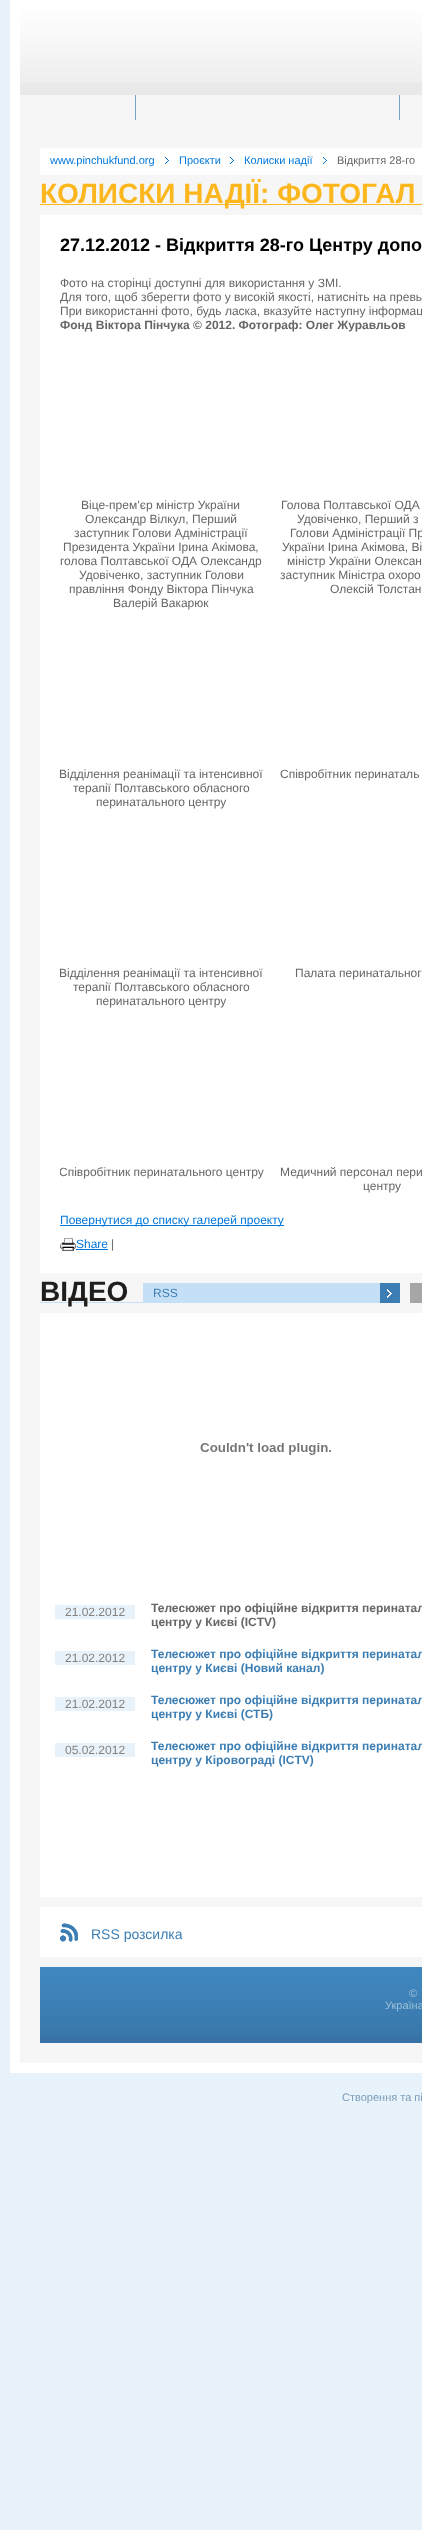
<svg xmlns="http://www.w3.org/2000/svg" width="422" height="2530">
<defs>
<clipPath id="clip1"><rect x="60" y="351" width="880" height="842"/></clipPath>
</defs>
<rect width="100%" height="100%" fill="#e7f2fb"/>
<rect x="20" y="95" width="402" height="1968" fill="#f6f6f6"/>
<rect x="15" y="5" width="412" height="2063" fill="none" stroke="#fff" stroke-width="10"/>
<rect x="20" y="83" width="402" height="12" fill="#e9e9e9"/>
<image x="20" y="10" width="402" height="73" href="media/1.png"/>
<image x="135" y="95" width="1" height="25" href="media/2.png"/>
<image x="399" y="95" width="1" height="25" href="media/2.png"/>
<rect x="40" y="148" width="382" height="27" fill="#fff"/>
<text x="50" y="164" style="font-family:Liberation Sans;font-size:11px;fill:#0077db">www.pinchukfund.org</text>
<image x="165" y="157" width="4" height="7" href="media/3.png"/>
<text x="179" y="164" style="font-family:Liberation Sans;font-size:11px;fill:#0077db">Проєкти</text>
<image x="230" y="157" width="4" height="7" href="media/3.png"/>
<text x="244" y="164" style="font-family:Liberation Sans;font-size:11px;fill:#0077db">Колиски надії</text>
<image x="323" y="157" width="4" height="7" href="media/3.png"/>
<text x="337" y="164" style="font-family:Liberation Sans;font-size:11px;fill:#666">Відкриття 28-го</text>
<rect x="40" y="215" width="382" height="1058" fill="#fff"/>
<rect x="40" y="204" width="382" height="1" fill="#fcb71e"/>
<text x="40" y="203" style="font-family:Liberation Sans;font-size:28px;font-weight:bold;fill:#fcb71e">КОЛИСКИ НАДІЇ: ФОТОГАЛ</text>
<text x="60" y="251" style="font-family:Liberation Sans;font-size:18px;font-weight:bold;fill:#000">27.12.2012 - Відкриття 28-го Центру допо</text>
<text x="60" y="287" style="font-family:Liberation Sans;font-size:12px;fill:#666">Фото на сторінці доступні для використання у ЗМІ.</text>
<text x="60" y="301" style="font-family:Liberation Sans;font-size:12px;fill:#666">Для того, щоб зберегти фото у високій якості, натисніть на превь</text>
<text x="60" y="315" style="font-family:Liberation Sans;font-size:12px;fill:#666">При використанні фото, будь ласка, вказуйте наступну інформац</text>
<text x="60" y="329" style="font-family:Liberation Sans;font-size:12px;font-weight:bold;fill:#666">Фонд Віктора Пінчука © 2012. Фотограф: Олег Журавльов</text>
<text x="81" y="509" style="font-family:Liberation Sans;font-size:12px;fill:#666">Віце-прем’єр міністр України</text>
<text x="85" y="523" style="font-family:Liberation Sans;font-size:12px;fill:#666">Олександр Вілкул, Перший</text>
<text x="74" y="537" style="font-family:Liberation Sans;font-size:12px;fill:#666">заступник Голови Адміністрації</text>
<text x="63" y="551" style="font-family:Liberation Sans;font-size:12px;fill:#666">Президента України Ірина Акімова,</text>
<text x="60" y="565" style="font-family:Liberation Sans;font-size:12px;fill:#666">голова Полтавської ОДА Олександр</text>
<text x="79" y="579" style="font-family:Liberation Sans;font-size:12px;fill:#666">Удовіченко, заступник Голови</text>
<text x="69" y="593" style="font-family:Liberation Sans;font-size:12px;fill:#666">правління Фонду Віктора Пінчука</text>
<text x="113" y="607" style="font-family:Liberation Sans;font-size:12px;fill:#666">Валерій Вакарюк</text>
<text x="281" y="509" style="font-family:Liberation Sans;font-size:12px;fill:#666">Голова Полтавської ОДА</text>
<text x="297" y="523" style="font-family:Liberation Sans;font-size:12px;fill:#666">Удовіченко, Перший з</text>
<text x="290" y="537" style="font-family:Liberation Sans;font-size:12px;fill:#666">Голови Адміністрації Пр</text>
<text x="282" y="551" style="font-family:Liberation Sans;font-size:12px;fill:#666">України Ірина Акімова, Ві</text>
<text x="287" y="565" style="font-family:Liberation Sans;font-size:12px;fill:#666">міністр України Олексан</text>
<text x="280" y="579" style="font-family:Liberation Sans;font-size:12px;fill:#666">заступник Міністра охоро</text>
<text x="330" y="593" style="font-family:Liberation Sans;font-size:12px;fill:#666">Олексій Толстан</text>
<text x="59" y="778" style="font-family:Liberation Sans;font-size:12px;fill:#666">Відділення реанімації та інтенсивної</text>
<text x="73" y="792" style="font-family:Liberation Sans;font-size:12px;fill:#666">терапії Полтавського обласного</text>
<text x="96" y="806" style="font-family:Liberation Sans;font-size:12px;fill:#666">перинатального центру</text>
<text x="280" y="778" style="font-family:Liberation Sans;font-size:12px;fill:#666">Співробітник перинаталь</text>
<text x="59" y="977" style="font-family:Liberation Sans;font-size:12px;fill:#666">Відділення реанімації та інтенсивної</text>
<text x="73" y="991" style="font-family:Liberation Sans;font-size:12px;fill:#666">терапії Полтавського обласного</text>
<text x="96" y="1005" style="font-family:Liberation Sans;font-size:12px;fill:#666">перинатального центру</text>
<text x="295" y="977" style="font-family:Liberation Sans;font-size:12px;fill:#666">Палата перинатальног</text>
<g clip-path="url(#clip1)">
<text x="59" y="1176" style="font-family:Liberation Sans;font-size:12px;fill:#666">Співробітник перинатального центру</text>
</g>
<text x="280" y="1176" style="font-family:Liberation Sans;font-size:12px;fill:#666">Медичний персонал пери</text>
<text x="363" y="1190" style="font-family:Liberation Sans;font-size:12px;fill:#666">центру</text>
<rect x="60" y="1225" width="224" height="1" fill="#0077db"/>
<text x="60" y="1224" style="font-family:Liberation Sans;font-size:12px;fill:#0077db">Повернутися до списку галерей проекту</text>
<image x="60" y="1238" width="16" height="13" href="media/4.png"/>
<text x="76" y="1248" style="font-family:Liberation Sans;font-size:12px;fill:#0077db">Share</text>
<rect x="76" y="1249" width="32" height="1" fill="#0077db"/>
<text x="111" y="1248" style="font-family:Liberation Sans;font-size:12px;fill:#666">|</text>
<rect x="40" y="1313" width="382" height="584" fill="#fff"/>
<rect x="40" y="1283" width="340" height="20" fill="#c5e0f6"/>
<rect x="40" y="1283" width="103" height="19" fill="#f6f6f6"/>
<text x="40" y="1301" style="font-family:Liberation Sans;font-size:28px;font-weight:bold;fill:#1f1e1c">ВІДЕО</text>
<text x="153" y="1297" style="font-family:Liberation Sans;font-size:12px;fill:#3c7eb3">RSS</text>
<image x="380" y="1283" width="20" height="20" href="media/5.png"/>
<rect x="410" y="1283" width="12" height="20" fill="#a6a6a6"/>
<image x="200" y="1443" width="131" height="12" href="media/6.png"/>
<rect x="55" y="1605" width="80" height="14" fill="#e7f2fb"/>
<text x="65" y="1616" style="font-family:Liberation Sans;font-size:12px;fill:#85817d">21.02.2012</text>
<text x="151" y="1612" style="font-family:Liberation Sans;font-size:12px;font-weight:bold;fill:#666">Телесюжет про офіційне відкриття перинатал</text>
<text x="151" y="1626" style="font-family:Liberation Sans;font-size:12px;font-weight:bold;fill:#666">центру у Києві (ICTV)</text>
<rect x="55" y="1651" width="80" height="14" fill="#e7f2fb"/>
<text x="65" y="1662" style="font-family:Liberation Sans;font-size:12px;fill:#85817d">21.02.2012</text>
<text x="151" y="1658" style="font-family:Liberation Sans;font-size:12px;font-weight:bold;fill:#3c7eb3">Телесюжет про офіційне відкриття перинатал</text>
<text x="151" y="1672" style="font-family:Liberation Sans;font-size:12px;font-weight:bold;fill:#3c7eb3">центру у Києві (Новий канал)</text>
<rect x="55" y="1697" width="80" height="14" fill="#e7f2fb"/>
<text x="65" y="1708" style="font-family:Liberation Sans;font-size:12px;fill:#85817d">21.02.2012</text>
<text x="151" y="1704" style="font-family:Liberation Sans;font-size:12px;font-weight:bold;fill:#3c7eb3">Телесюжет про офіційне відкриття перинатал</text>
<text x="151" y="1718" style="font-family:Liberation Sans;font-size:12px;font-weight:bold;fill:#3c7eb3">центру у Києві (СТБ)</text>
<rect x="55" y="1743" width="80" height="14" fill="#e7f2fb"/>
<text x="65" y="1754" style="font-family:Liberation Sans;font-size:12px;fill:#85817d">05.02.2012</text>
<text x="151" y="1750" style="font-family:Liberation Sans;font-size:12px;font-weight:bold;fill:#3c7eb3">Телесюжет про офіційне відкриття перинатал</text>
<text x="151" y="1764" style="font-family:Liberation Sans;font-size:12px;font-weight:bold;fill:#3c7eb3">центру у Кіровограді (ICTV)</text>
<rect x="40" y="1907" width="382" height="50" fill="#fff"/>
<image x="60" y="1923" width="18" height="19" href="media/7.png"/>
<text x="91" y="1939" style="font-family:Liberation Sans;font-size:14px;fill:#3c7eb3">RSS розсилка</text>
<rect x="40" y="2036" width="382" height="7" fill="#3774a5"/>
<image x="40" y="1967" width="382" height="69" href="media/8.png"/>
<text x="409" y="1997" style="font-family:Liberation Sans;font-size:11px;fill:#a1c2db">©</text>
<text x="385" y="2009" style="font-family:Liberation Sans;font-size:11px;fill:#a1c2db">Україна</text>
<text x="342" y="2101" style="font-family:Liberation Sans;font-size:11px;fill:#7b9cb8">Створення та пі</text>
</svg>
